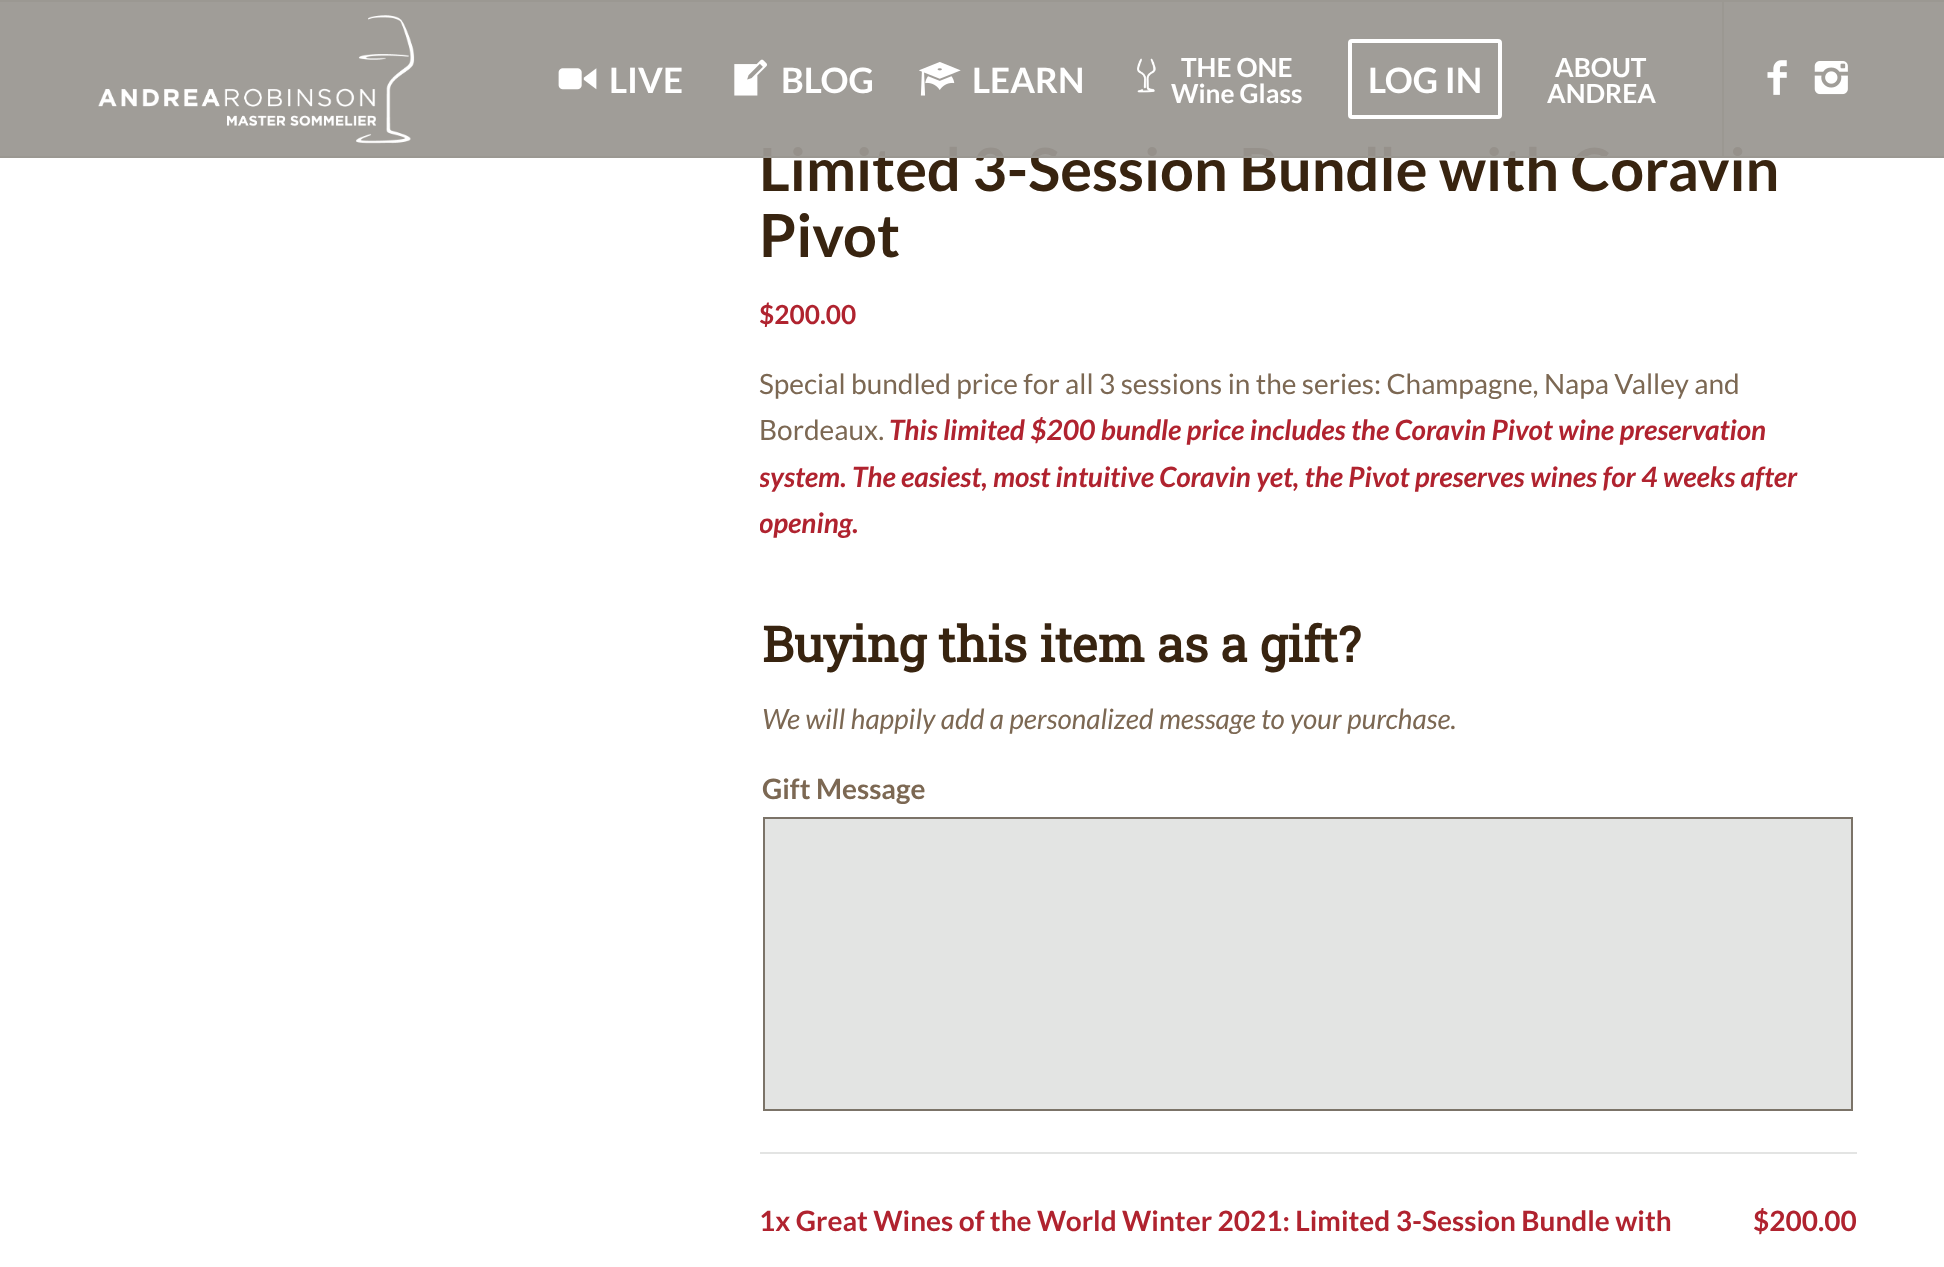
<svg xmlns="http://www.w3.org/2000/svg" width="1944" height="1267">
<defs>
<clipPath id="clip1"><rect x="760" y="70" width="1097" height="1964"/></clipPath>
</defs>
<rect width="100%" height="100%" fill="#fff"/>
<text x="759" y="191" style="font-family:Lato;font-size:59.5px;font-weight:bold;fill:#382410">Limited 3-Session Bundle with Coravin</text>
<rect y="2" width="1944" height="154" fill="#9b9892f2"/>
<rect width="1944" height="2" fill="#9b9892"/>
<rect y="156" width="1944" height="2" fill="#9b9892"/>
<image x="98" y="15" width="317" height="129" href="media/1.png"/>
<rect x="1722" y="2" width="2" height="154" fill="#9b9892"/>
<image x="558" y="68" width="39" height="22" href="media/2.png"/>
<text x="609" y="93" style="font-family:Lato;font-size:35px;font-weight:bold;fill:#fff">LIVE</text>
<image x="734" y="59" width="33" height="37" href="media/3.png"/>
<text x="781" y="93" style="font-family:Lato;font-size:35px;font-weight:bold;fill:#fff">BLOG</text>
<image x="919" y="62" width="42" height="34" href="media/4.png"/>
<text x="972" y="93" style="font-family:Lato;font-size:35px;font-weight:bold;fill:#fff">LEARN</text>
<image x="1137" y="58" width="19" height="35" href="media/5.png"/>
<text x="1181" y="77" style="font-family:Lato;font-size:26.25px;font-weight:bold;fill:#fff">THE ONE</text>
<text x="1171" y="103" style="font-family:Lato;font-size:26.25px;font-weight:bold;fill:#fff">Wine Glass</text>
<rect x="1350" y="41" width="150" height="76" rx="2" fill="none" stroke="#fff" stroke-width="4"/>
<text x="1368" y="93" style="font-family:Lato;font-size:35px;font-weight:bold;fill:#fff">LOG IN</text>
<text x="1555" y="77" style="font-family:Lato;font-size:26.25px;font-weight:bold;fill:#fff">ABOUT</text>
<text x="1547" y="103" style="font-family:Lato;font-size:26.25px;font-weight:bold;fill:#fff">ANDREA</text>
<image x="1767" y="60" width="20" height="35" href="media/6.png"/>
<image x="1814" y="61" width="34" height="34" href="media/7.png"/>
<text x="759" y="257" style="font-family:Lato;font-size:59.5px;font-weight:bold;fill:#382410">Pivot</text>
<text x="759" y="324" style="font-family:Lato;font-size:26.25px;font-weight:bold;fill:#b0232f">$200.00</text>
<text x="759" y="394" style="font-family:Lato;font-size:28px;fill:#7c6853">Special bundled price for all 3 sessions in the series: Champagne, Napa Valley and</text>
<text x="759" y="440" style="font-family:Lato;font-size:28px;fill:#7c6853">Bordeaux.</text>
<text x="889" y="440" style="font-family:Lato;font-size:28px;font-weight:bold;font-style:italic;fill:#b0232f">This limited $200 bundle price includes the Coravin Pivot wine preservation</text>
<g clip-path="url(#clip1)">
<text x="759" y="487" style="font-family:Lato;font-size:28px;font-weight:bold;font-style:italic;fill:#b0232f">system. The easiest, most intuitive Coravin yet, the Pivot preserves wines for 4 weeks after</text>
<text x="759" y="533" style="font-family:Lato;font-size:28px;font-weight:bold;font-style:italic;fill:#b0232f">opening.</text>
</g>
<text x="762" y="662" style="font-family:Roboto Slab;font-size:49px;font-weight:bold;fill:#382410">Buying this item as a gift?</text>
<text x="762" y="729" style="font-family:Lato;font-size:28px;font-style:italic;fill:#7c6853">We will happily add a personalized message to your purchase.</text>
<text x="762" y="799" style="font-family:Lato;font-size:28px;font-weight:bold;fill:#7c6853">Gift Message</text>
<rect x="764" y="818" width="1088" height="292" fill="#e3e4e3" stroke="#7b7368" stroke-width="2"/>
<rect x="760" y="1152" width="1097" height="2" fill="#e3e4e3"/>
<text x="759" y="1231" style="font-family:Lato;font-size:28px;font-weight:bold;fill:#b0232f">1x Great Wines of the World Winter 2021: Limited 3-Session Bundle with</text>
<text x="1753" y="1231" style="font-family:Lato;font-size:28px;font-weight:bold;fill:#b0232f">$200.00</text>
</svg>
